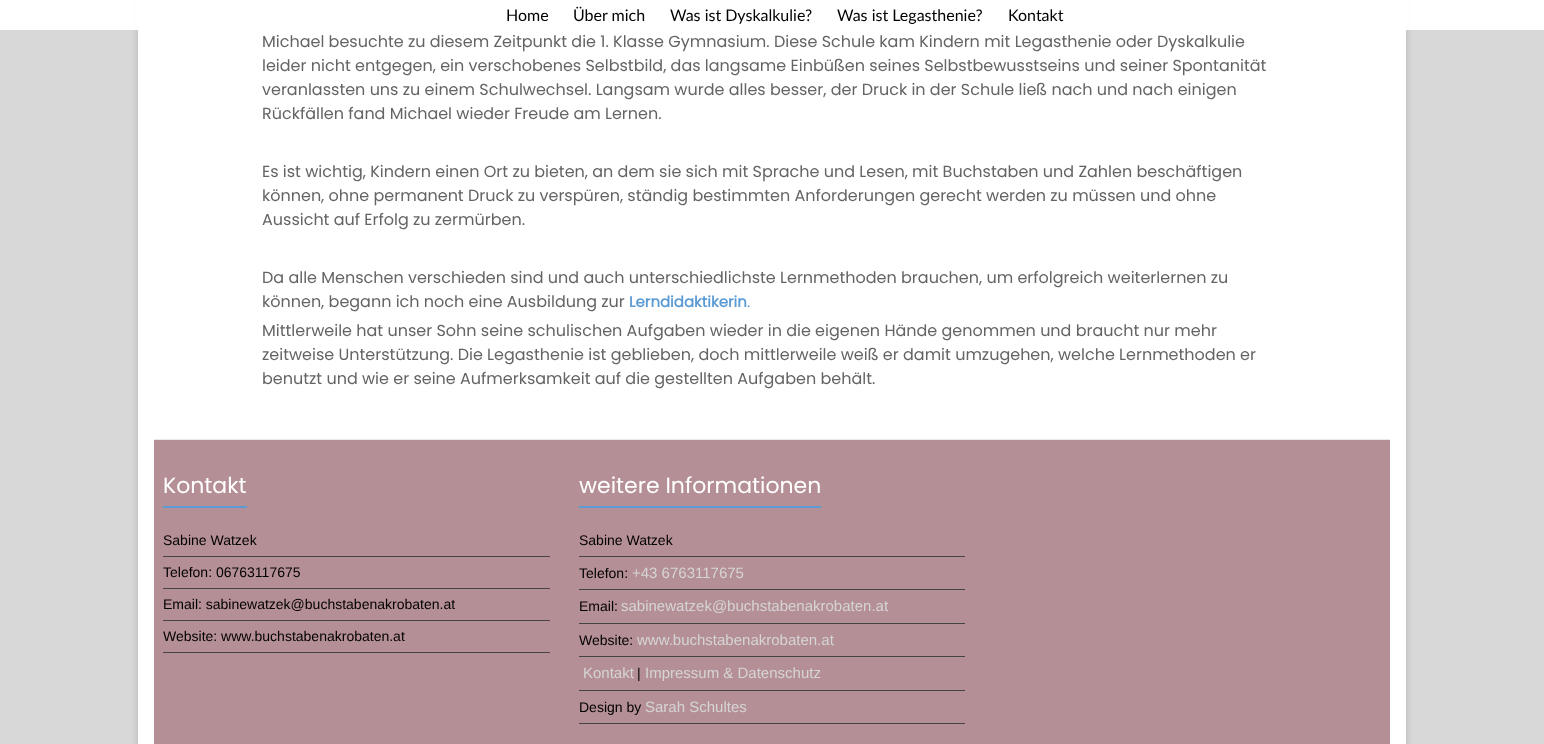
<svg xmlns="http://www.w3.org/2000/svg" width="1544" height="744">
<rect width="100%" height="100%" fill="#d8d8d8"/>
<rect x="138" y="-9" width="1268" height="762" fill="#6464644d" filter="blur(3px)"/>
<rect x="138" width="1268" height="744" fill="#fff"/>
<rect width="1544" height="30" fill="#fffffffa"/>
<text x="506" y="21" style="font-family:Lato;font-size:16px;fill:#000">Home</text>
<text x="573" y="21" style="font-family:Lato;font-size:16px;fill:#000">Über mich</text>
<text x="670" y="21" style="font-family:Lato;font-size:16px;fill:#000">Was ist Dyskalkulie?</text>
<text x="837" y="21" style="font-family:Lato;font-size:16px;fill:#000">Was ist Legasthenie?</text>
<text x="1008" y="21" style="font-family:Lato;font-size:16px;fill:#000">Kontakt</text>
<text x="262" y="47" style="font-family:Poppins;font-size:16px;fill:#646464">Michael besuchte zu diesem Zeitpunkt die 1. Klasse Gymnasium. Diese Schule kam Kindern mit Legasthenie oder Dyskalkulie</text>
<text x="262" y="71" style="font-family:Poppins;font-size:16px;fill:#646464">leider nicht entgegen, ein verschobenes Selbstbild, das langsame Einbüßen seines Selbstbewusstseins und seiner Spontanität</text>
<text x="262" y="95" style="font-family:Poppins;font-size:16px;fill:#646464">veranlassten uns zu einem Schulwechsel. Langsam wurde alles besser, der Druck in der Schule ließ nach und nach einigen</text>
<text x="262" y="119" style="font-family:Poppins;font-size:16px;fill:#646464">Rückfällen fand Michael wieder Freude am Lernen.</text>
<text x="262" y="177" style="font-family:Poppins;font-size:16px;fill:#646464">Es ist wichtig, Kindern einen Ort zu bieten, an dem sie sich mit Sprache und Lesen, mit Buchstaben und Zahlen beschäftigen</text>
<text x="262" y="201" style="font-family:Poppins;font-size:16px;fill:#646464">können, ohne permanent Druck zu verspüren, ständig bestimmten Anforderungen gerecht werden zu müssen und ohne</text>
<text x="262" y="225" style="font-family:Poppins;font-size:16px;fill:#646464">Aussicht auf Erfolg zu zermürben.</text>
<text x="262" y="283" style="font-family:Poppins;font-size:16px;fill:#646464">Da alle Menschen verschieden sind und auch unterschiedlichste Lernmethoden brauchen, um erfolgreich weiterlernen zu</text>
<text x="262" y="307" style="font-family:Poppins;font-size:16px;fill:#646464">können, begann ich noch eine Ausbildung zur</text>
<text x="629" y="307" style="font-family:Poppins;font-size:15px;font-weight:bold;fill:#5b9bd5">Lerndidaktikerin</text>
<text x="747" y="307" style="font-family:Poppins;font-size:15px;fill:#5b9bd5">.</text>
<text x="262" y="336" style="font-family:Poppins;font-size:16px;fill:#646464">Mittlerweile hat unser Sohn seine schulischen Aufgaben wieder in die eigenen Hände genommen und braucht nur mehr</text>
<text x="262" y="360" style="font-family:Poppins;font-size:16px;fill:#646464">zeitweise Unterstützung. Die Legasthenie ist geblieben, doch mittlerweile weiß er damit umzugehen, welche Lernmethoden er</text>
<text x="262" y="384" style="font-family:Poppins;font-size:16px;fill:#646464">benutzt und wie er seine Aufmerksamkeit auf die gestellten Aufgaben behält.</text>
<rect x="154" y="440" width="1236" height="304" fill="#b58f96"/>
<rect x="154" y="439" width="1236" height="1" fill="#eaeaea"/>
<text x="163" y="493" style="font-family:Poppins;font-size:22px;fill:#fff">Kontakt</text>
<rect x="163" y="506" width="84" height="2" fill="#5b9bd5"/>
<rect x="163" y="556" width="387" height="1" fill="#444"/>
<text x="163" y="545" style="font-family:Liberation Sans;font-size:14px;fill:#000">Sabine Watzek</text>
<rect x="163" y="588" width="387" height="1" fill="#444"/>
<text x="163" y="577" style="font-family:Liberation Sans;font-size:14px;fill:#000">Telefon: 06763117675</text>
<rect x="163" y="620" width="387" height="1" fill="#444"/>
<text x="163" y="609" style="font-family:Liberation Sans;font-size:14px;fill:#000">Email: sabinewatzek@buchstabenakrobaten.at</text>
<rect x="163" y="652" width="387" height="1" fill="#444"/>
<text x="163" y="641" style="font-family:Liberation Sans;font-size:14px;fill:#000">Website: www.buchstabenakrobaten.at</text>
<text x="579" y="493" style="font-family:Poppins;font-size:22px;fill:#fff">weitere Informationen</text>
<rect x="579" y="506" width="242" height="2" fill="#5b9bd5"/>
<rect x="579" y="556" width="386" height="1" fill="#444"/>
<text x="579" y="545" style="font-family:Liberation Sans;font-size:14px;fill:#000">Sabine Watzek</text>
<rect x="579" y="589" width="386" height="1" fill="#444"/>
<text x="579" y="578" style="font-family:Liberation Sans;font-size:14px;fill:#000">Telefon:</text>
<text x="632" y="578" style="font-family:Liberation Sans;font-size:15px;fill:#d5d5d5">+43 6763117675</text>
<rect x="579" y="623" width="386" height="1" fill="#444"/>
<text x="579" y="611" style="font-family:Liberation Sans;font-size:14px;fill:#000">Email:</text>
<text x="621" y="611" style="font-family:Liberation Sans;font-size:15px;fill:#d5d5d5">sabinewatzek@buchstabenakrobaten.at</text>
<rect x="579" y="656" width="386" height="1" fill="#444"/>
<text x="579" y="645" style="font-family:Liberation Sans;font-size:14px;fill:#000">Website:</text>
<text x="637" y="645" style="font-family:Liberation Sans;font-size:15px;fill:#d5d5d5">www.buchstabenakrobaten.at</text>
<rect x="579" y="690" width="386" height="1" fill="#444"/>
<text x="583" y="678" style="font-family:Liberation Sans;font-size:15px;fill:#d5d5d5">Kontakt</text>
<text x="637" y="678" style="font-family:Liberation Sans;font-size:14px;fill:#000">|</text>
<text x="645" y="678" style="font-family:Liberation Sans;font-size:15px;fill:#d5d5d5">Impressum &amp; Datenschutz</text>
<rect x="579" y="723" width="386" height="1" fill="#444"/>
<text x="579" y="712" style="font-family:Liberation Sans;font-size:14px;fill:#000">Design by</text>
<text x="645" y="712" style="font-family:Liberation Sans;font-size:15px;fill:#d5d5d5">Sarah Schultes</text>
</svg>
